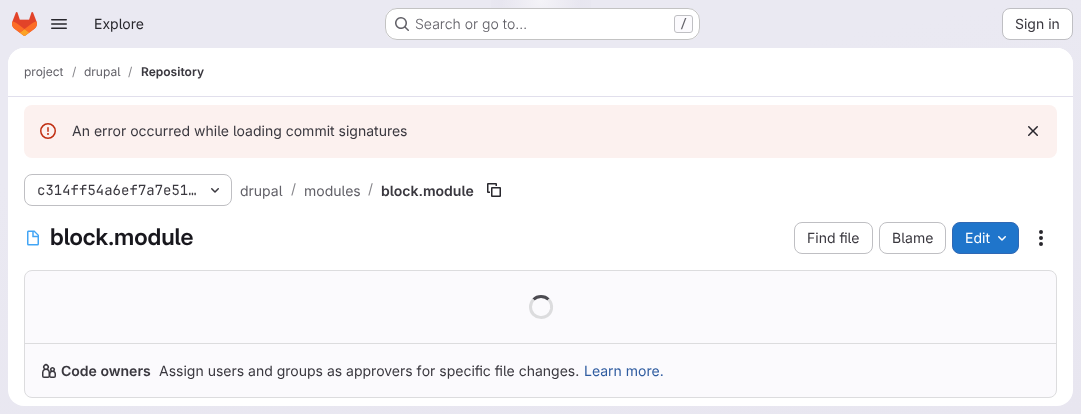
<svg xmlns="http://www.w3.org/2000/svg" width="1081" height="414">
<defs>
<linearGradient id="g1" gradientUnits="userSpaceOnUse" x1="592" y1="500" x2="489" y2="-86"><stop offset="0" stop-color="#e8e6f0"/><stop offset="0.7" stop-color="#eae9f2"/></linearGradient>
<radialGradient id="g2" gradientUnits="userSpaceOnUse" cx="0" cy="0" r="1" gradientTransform="matrix(541 0 0 414 541 0)"><stop offset="0" stop-color="#e4e2ed"/><stop offset="0.13" stop-color="#e4e2ed" stop-opacity="0"/></radialGradient>
<radialGradient id="g3" gradientUnits="userSpaceOnUse" cx="541" cy="0" r="681"><stop offset="0" stop-color="#fff" stop-opacity="0.6"/><stop offset="0.06" stop-color="#fff" stop-opacity="0"/></radialGradient>
</defs>
<rect width="100%" height="100%" fill="#fff"/>
<rect width="1081" height="414" fill="url(#g1)"/>
<rect x="491" width="100" height="39" fill="url(#g2)"/>
<rect x="502" width="78" height="8" fill="url(#g3)"/>
<image x="12" y="12" width="25" height="24" href="media/1.png"/>
<image x="51" y="19" width="16" height="10" href="media/2.png"/>
<text x="94" y="29" style="font-family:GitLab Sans;font-size:14px;fill:#28272d">Explore</text>
<rect x="385" y="8" width="315" height="32" rx="12" fill="#fff"/>
<rect x="385.5" y="8.5" width="314" height="31" rx="11.5" fill="none" stroke="#0505063d"/>
<image x="395" y="17" width="14" height="14" href="media/3.png"/>
<text x="415" y="29" style="font-family:GitLab Sans;font-size:14px;font-weight:300;fill:#626168">Search or go to…</text>
<rect x="674.5" y="15.5" width="18" height="17" rx="2.5" fill="#fbfafd" stroke="#bfbfc3"/>
<text x="680" y="28" style="font-family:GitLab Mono;font-size:12px;font-weight:500;fill:#626168">/</text>
<rect x="1002.5" y="8.5" width="70" height="31" rx="7.5" fill="#fff" stroke="#bfbfc3"/>
<text x="1015" y="29" style="font-family:GitLab Sans;font-size:14px;fill:#3a383f">Sign in</text>
<rect x="8" y="48" width="1065" height="358" rx="16" fill="#fff"/>
<path d="M24 48h1033c9 0 16 7 16 16v33h-1065v-33c0-9 7-16 16-16z" fill="#fff"/>
<rect x="8" y="96" width="1065" height="1" fill="#e1dfec"/>
<text x="24" y="76" style="font-family:GitLab Sans;font-size:12px;fill:#626168">project</text>
<text x="72" y="76" style="font-family:GitLab Sans;font-size:12px;fill:#89888d">/</text>
<text x="84" y="76" style="font-family:GitLab Sans;font-size:12px;fill:#626168">drupal</text>
<text x="128" y="76" style="font-family:GitLab Sans;font-size:12px;fill:#89888d">/</text>
<text x="141" y="76" style="font-family:GitLab Sans;font-size:12px;font-weight:600;fill:#3a383f">Repository</text>
<rect x="24" y="105" width="1033" height="53" rx="8" fill="#fcf1ef"/>
<image x="40" y="123" width="16" height="16" href="media/4.png"/>
<text x="72" y="136" style="font-family:GitLab Sans;font-size:14px;fill:#3a383f">An error occurred while loading commit signatures</text>
<image x="1028" y="126" width="10" height="10" href="media/5.png"/>
<rect x="24.5" y="174.5" width="207" height="31" rx="7.5" fill="none" stroke="#bfbfc3"/>
<text x="37" y="195" style="font-family:GitLab Mono;font-size:14px;fill:#3a383f">c314ff54a6ef7a7e51…</text>
<image x="211" y="188" width="8" height="5" href="media/6.png"/>
<text x="240" y="196" style="font-family:GitLab Sans;font-size:14px;fill:#626168">drupal</text>
<text x="291" y="194" style="font-family:GitLab Sans;font-size:14px;fill:#89888d">/</text>
<text x="304" y="196" style="font-family:GitLab Sans;font-size:14px;fill:#626168">modules</text>
<text x="368" y="194" style="font-family:GitLab Sans;font-size:14px;fill:#89888d">/</text>
<text x="381" y="196" style="font-family:GitLab Sans;font-size:14px;font-weight:600;fill:#3a383f">block.module</text>
<image x="487" y="183" width="14" height="14" href="media/7.png"/>
<image x="27" y="230" width="12" height="16" href="media/8.png"/>
<text x="50" y="245" style="font-family:'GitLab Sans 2';font-size:23px;font-weight:600;fill:#18171d">block.module</text>
<rect x="794.5" y="222.5" width="78" height="31" rx="7.5" fill="none" stroke="#bfbfc3"/>
<text x="807" y="243" style="font-family:GitLab Sans;font-size:14px;fill:#3a383f">Find file</text>
<rect x="879.5" y="222.5" width="66" height="31" rx="7.5" fill="none" stroke="#bfbfc3"/>
<text x="892" y="243" style="font-family:GitLab Sans;font-size:14px;fill:#3a383f">Blame</text>
<rect x="952.5" y="222.5" width="66" height="31" rx="7.5" fill="#1f75cb" stroke="#2f68b4"/>
<text x="965" y="243" style="font-family:GitLab Sans;font-size:14px;fill:#fff">Edit</text>
<image x="998" y="236" width="8" height="5" href="media/9.png"/>
<image x="1039" y="230" width="4" height="16" href="media/10.png"/>
<rect x="24.5" y="270.5" width="1032" height="127" rx="7.5" fill="#fbfafd" stroke="#dcdcde"/>
<path d="M533.5 299.5c4-4 11-4 15 0" fill="none" stroke="#4c4b51" stroke-width="3"/>
<path d="M548.5 299.5c2.5 2.5 3.5 6 3 9.5c-2.5 12.5-21 10.5-21-2c0-3 1-5.5 3-7.5" fill="none" stroke="#dcdcde" stroke-width="3"/>
<rect x="25" y="343" width="1031" height="1" fill="#dcdcde"/>
<image x="42" y="363" width="14" height="15" href="media/11.png"/>
<text x="61" y="376" style="font-family:GitLab Sans;font-size:14px;font-weight:600;fill:#3a383f">Code owners</text>
<text x="159" y="376" style="font-family:GitLab Sans;font-size:14px;fill:#3a383f">Assign users and groups as approvers for specific file changes.</text>
<text x="584" y="376" style="font-family:GitLab Sans;font-size:14px;fill:#2f5ca0">Learn more.</text>
</svg>
